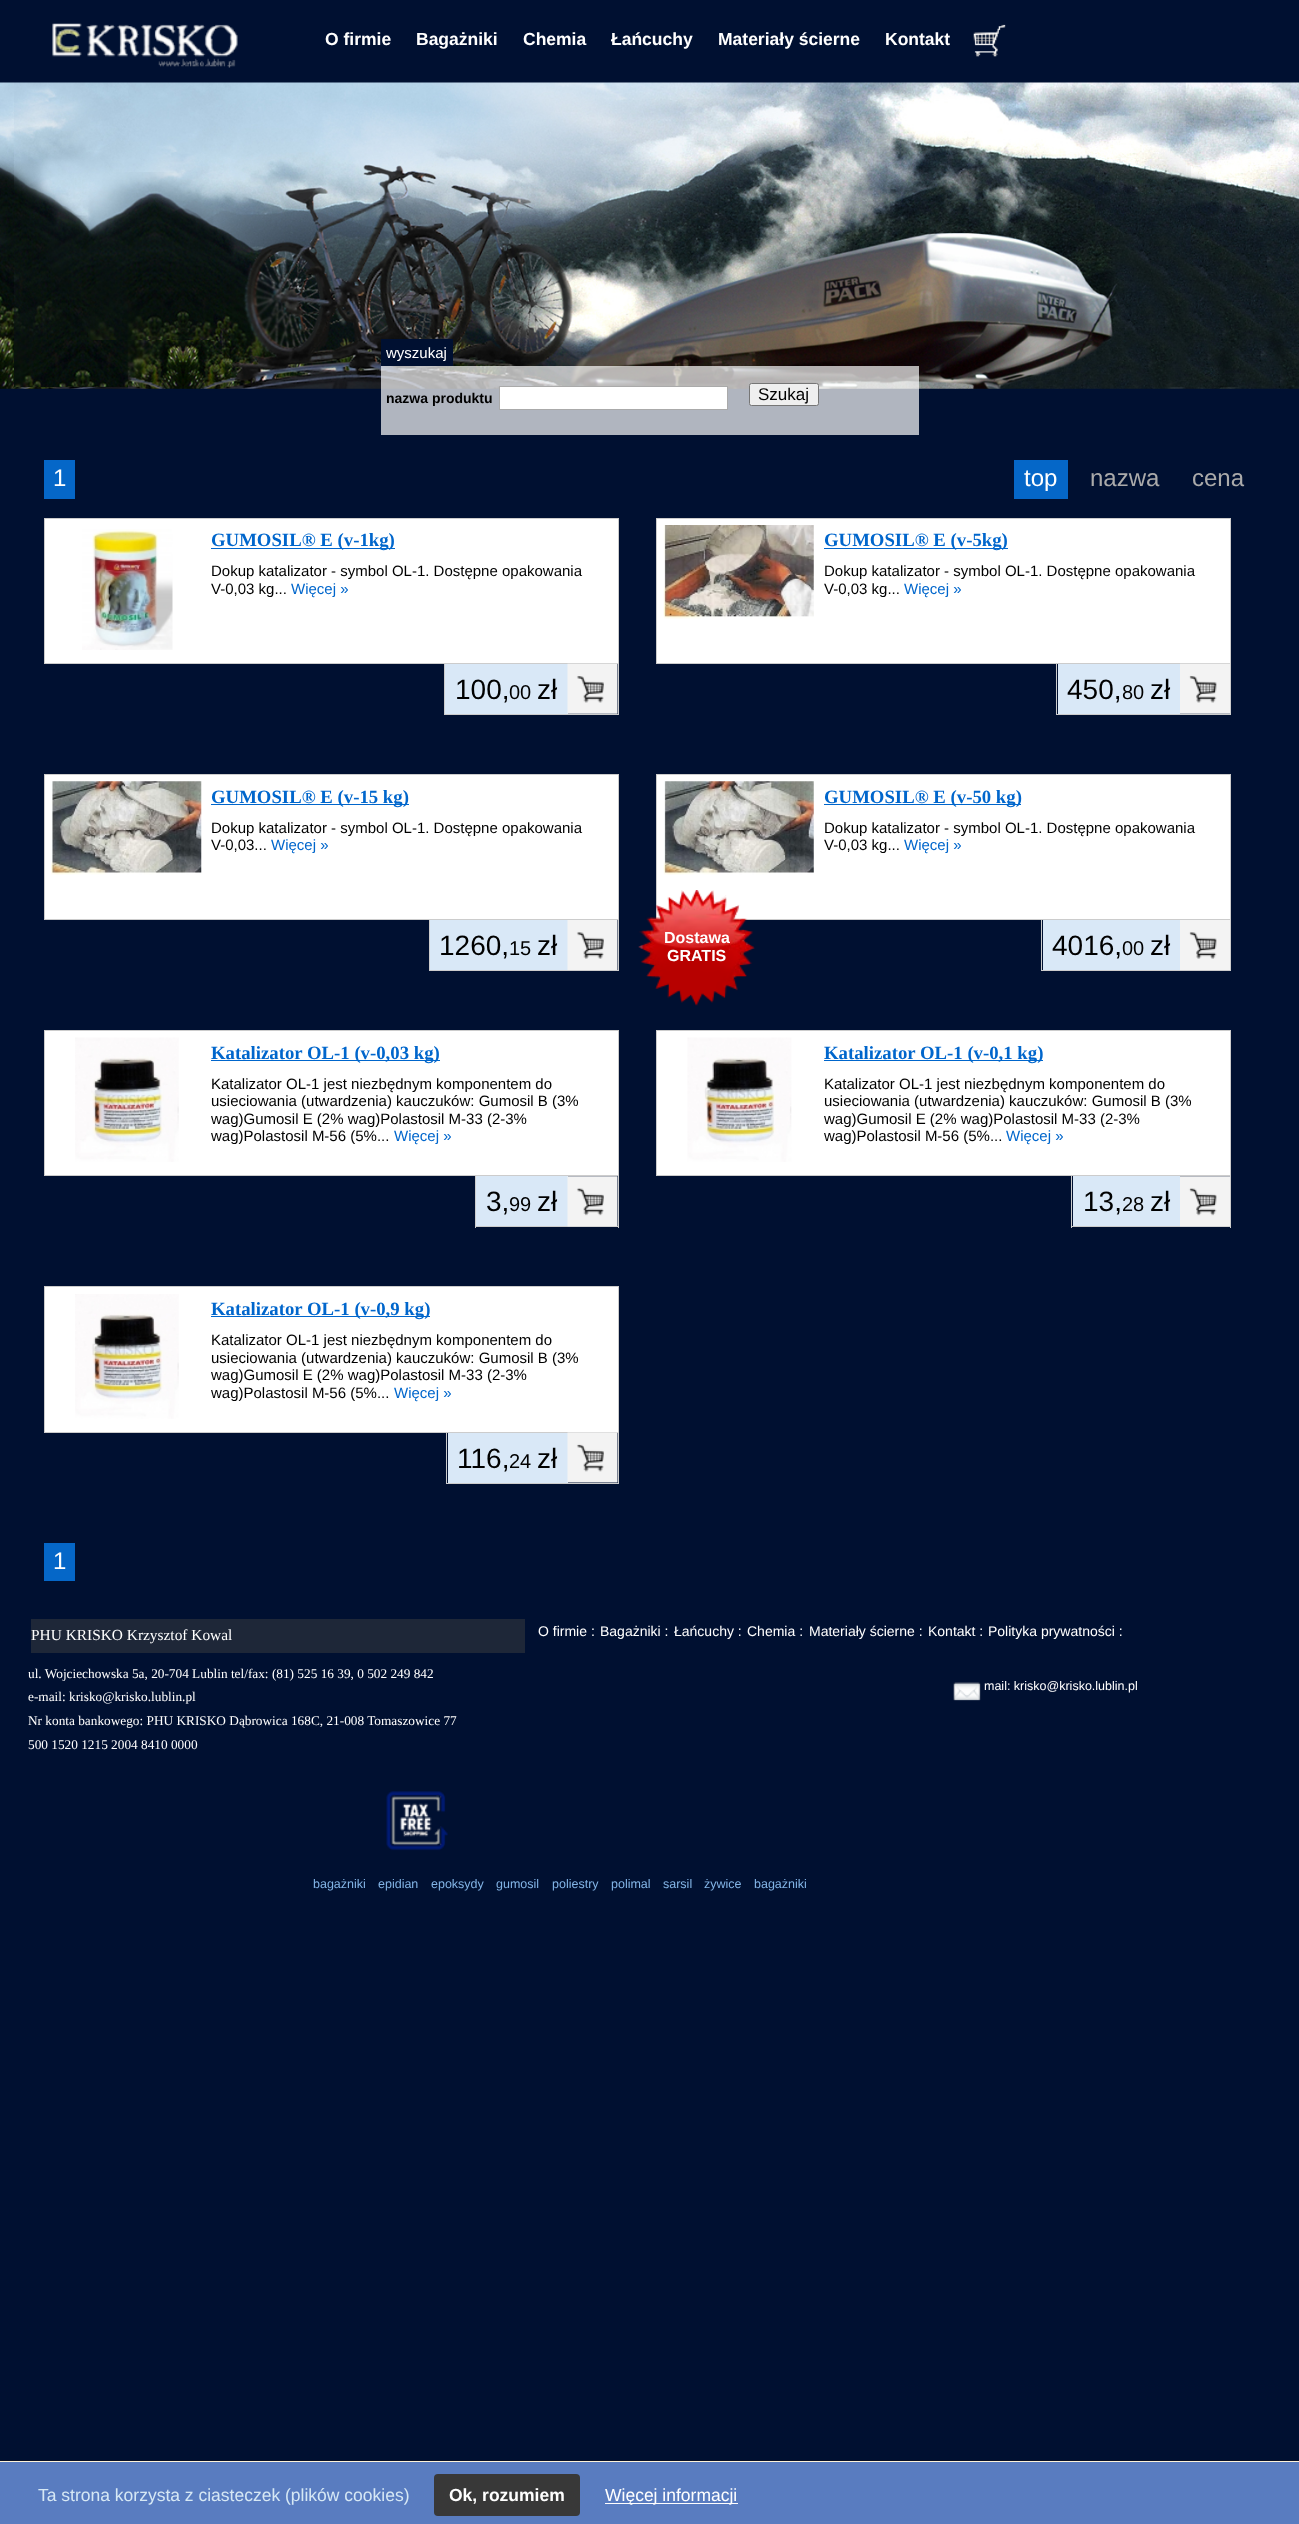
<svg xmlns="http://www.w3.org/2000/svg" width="1299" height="2524">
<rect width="100%" height="100%" fill="#001031"/>
<image x="52" y="23" width="186" height="45" href="media/1.png"/>
<text x="325" y="45" style="font-family:Liberation Sans;font-size:17.5px;font-weight:bold;fill:#fff">O firmie</text>
<text x="416" y="45" style="font-family:Liberation Sans;font-size:17.5px;font-weight:bold;fill:#fff">Bagażniki</text>
<text x="523" y="45" style="font-family:Liberation Sans;font-size:17.5px;font-weight:bold;fill:#fff">Chemia</text>
<text x="611" y="45" style="font-family:Liberation Sans;font-size:17.5px;font-weight:bold;fill:#fff">Łańcuchy</text>
<text x="718" y="45" style="font-family:Liberation Sans;font-size:17.5px;font-weight:bold;fill:#fff">Materiały ścierne</text>
<text x="885" y="45" style="font-family:Liberation Sans;font-size:17.5px;font-weight:bold;fill:#fff">Kontakt</text>
<image x="973" y="24" width="33" height="33" href="media/2.png"/>
<image x="0" y="82" width="1299" height="307" href="media/3.png"/>
<rect x="381" y="339" width="72" height="27" fill="#001031"/>
<text x="386" y="358" style="font-family:Liberation Sans;font-size:15px;fill:#fff">wyszukaj</text>
<rect x="381" y="366" width="538" height="69" fill="#ffffffb0"/>
<text x="386" y="403" style="font-family:Liberation Sans;font-size:14px;font-weight:bold;fill:#000">nazwa produktu</text>
<rect x="499.5" y="386.5" width="228" height="23" fill="#fff" stroke="#aaa"/>
<rect x="749.5" y="383.5" width="69" height="22" rx="2" fill="#efefef" stroke="#767676"/>
<text x="758" y="400" style="font-family:Liberation Sans;font-size:17px;fill:#000">Szukaj</text>
<rect x="44" y="460" width="31" height="39" fill="#0567c8"/>
<text x="53" y="486" style="font-family:Liberation Sans;font-size:24px;fill:#fff">1</text>
<rect x="1014" y="460" width="54" height="39" fill="#0567c8"/>
<text x="1024" y="486" style="font-family:Liberation Sans;font-size:24px;fill:#fff">top</text>
<text x="1090" y="486" style="font-family:Liberation Sans;font-size:24px;fill:#aaa">nazwa</text>
<text x="1192" y="486" style="font-family:Liberation Sans;font-size:24px;fill:#aaa">cena</text>
<rect x="44.5" y="518.5" width="574" height="145" fill="#fff" stroke="#ccc"/>
<image x="82" y="529" width="91" height="121" href="media/4.png"/>
<rect x="211" y="548" width="184" height="1" fill="#06c"/>
<text x="211" y="546" style="font-family:Liberation Serif;font-size:18.75px;font-weight:bold;fill:#06c">GUMOSIL® E (v-1kg)</text>
<text x="211" y="576" style="font-family:Liberation Sans;font-size:15px;fill:#000">Dokup katalizator - symbol OL-1. Dostępne opakowania</text>
<text x="211" y="594" style="font-family:Liberation Sans;font-size:15px;fill:#000">V-0,03 kg...</text>
<text x="291" y="594" style="font-family:Liberation Sans;font-size:15px;fill:#06c">Więcej »</text>
<rect x="618" y="664" width="1" height="51" fill="#ccc"/>
<rect x="444" y="714" width="175" height="1" fill="#ccc"/>
<rect x="444" y="664" width="1" height="51" fill="#ccc"/>
<rect x="445" y="664" width="123" height="50" fill="#d9e8f7"/>
<text x="455" y="699" style="font-family:Liberation Sans;font-size:28px;fill:#000">100,</text>
<text x="509" y="699" style="font-family:Liberation Sans;font-size:20px;fill:#000">00</text>
<text x="537" y="699" style="font-family:Liberation Sans;font-size:28px;fill:#000">zł</text>
<image x="567" y="663" width="51" height="51" href="media/5.png"/>
<rect x="656.5" y="518.5" width="574" height="145" fill="#fff" stroke="#ccc"/>
<image x="663" y="525" width="151" height="94" href="media/6.png"/>
<rect x="824" y="548" width="184" height="1" fill="#06c"/>
<text x="824" y="546" style="font-family:Liberation Serif;font-size:18.75px;font-weight:bold;fill:#06c">GUMOSIL® E (v-5kg)</text>
<text x="824" y="576" style="font-family:Liberation Sans;font-size:15px;fill:#000">Dokup katalizator - symbol OL-1. Dostępne opakowania</text>
<text x="824" y="594" style="font-family:Liberation Sans;font-size:15px;fill:#000">V-0,03 kg...</text>
<text x="904" y="594" style="font-family:Liberation Sans;font-size:15px;fill:#06c">Więcej »</text>
<rect x="1230" y="664" width="1" height="51" fill="#ccc"/>
<rect x="1056" y="714" width="175" height="1" fill="#ccc"/>
<rect x="1056" y="664" width="1" height="51" fill="#ccc"/>
<rect x="1058" y="664" width="122" height="50" fill="#d9e8f7"/>
<text x="1067" y="699" style="font-family:Liberation Sans;font-size:28px;fill:#000">450,</text>
<text x="1122" y="699" style="font-family:Liberation Sans;font-size:20px;fill:#000">80</text>
<text x="1150" y="699" style="font-family:Liberation Sans;font-size:28px;fill:#000">zł</text>
<image x="1180" y="663" width="50" height="51" href="media/7.png"/>
<rect x="44.5" y="774.5" width="574" height="145" fill="#fff" stroke="#ccc"/>
<image x="51" y="781" width="151" height="94" href="media/8.png"/>
<rect x="211" y="804" width="198" height="1" fill="#06c"/>
<text x="211" y="803" style="font-family:Liberation Serif;font-size:18.75px;font-weight:bold;fill:#06c">GUMOSIL® E (v-15 kg)</text>
<text x="211" y="833" style="font-family:Liberation Sans;font-size:15px;fill:#000">Dokup katalizator - symbol OL-1. Dostępne opakowania</text>
<text x="211" y="850" style="font-family:Liberation Sans;font-size:15px;fill:#000">V-0,03...</text>
<text x="271" y="850" style="font-family:Liberation Sans;font-size:15px;fill:#06c">Więcej »</text>
<rect x="618" y="920" width="1" height="51" fill="#ccc"/>
<rect x="429" y="970" width="190" height="1" fill="#ccc"/>
<rect x="429" y="920" width="1" height="51" fill="#ccc"/>
<rect x="430" y="920" width="138" height="50" fill="#d9e8f7"/>
<text x="439" y="955" style="font-family:Liberation Sans;font-size:28px;fill:#000">1260,</text>
<text x="509" y="955" style="font-family:Liberation Sans;font-size:20px;fill:#000">15</text>
<text x="537" y="955" style="font-family:Liberation Sans;font-size:28px;fill:#000">zł</text>
<image x="567" y="920" width="51" height="50" href="media/9.png"/>
<rect x="656.5" y="774.5" width="574" height="145" fill="#fff" stroke="#ccc"/>
<image x="663" y="781" width="151" height="94" href="media/10.png"/>
<rect x="824" y="804" width="197" height="1" fill="#06c"/>
<text x="824" y="803" style="font-family:Liberation Serif;font-size:18.75px;font-weight:bold;fill:#06c">GUMOSIL® E (v-50 kg)</text>
<text x="824" y="833" style="font-family:Liberation Sans;font-size:15px;fill:#000">Dokup katalizator - symbol OL-1. Dostępne opakowania</text>
<text x="824" y="850" style="font-family:Liberation Sans;font-size:15px;fill:#000">V-0,03 kg...</text>
<text x="904" y="850" style="font-family:Liberation Sans;font-size:15px;fill:#06c">Więcej »</text>
<image x="638" y="890" width="117" height="116" href="media/11.png"/>
<text x="664" y="943" style="font-family:Liberation Sans;font-size:16px;font-weight:bold;fill:#fff">Dostawa</text>
<text x="667" y="961" style="font-family:Liberation Sans;font-size:16px;font-weight:bold;fill:#fff">GRATIS</text>
<rect x="1230" y="920" width="1" height="51" fill="#ccc"/>
<rect x="1041" y="970" width="190" height="1" fill="#ccc"/>
<rect x="1041" y="920" width="1" height="51" fill="#ccc"/>
<rect x="1043" y="920" width="137" height="50" fill="#d9e8f7"/>
<text x="1052" y="955" style="font-family:Liberation Sans;font-size:28px;fill:#000">4016,</text>
<text x="1122" y="955" style="font-family:Liberation Sans;font-size:20px;fill:#000">00</text>
<text x="1150" y="955" style="font-family:Liberation Sans;font-size:28px;fill:#000">zł</text>
<image x="1180" y="920" width="50" height="50" href="media/12.png"/>
<rect x="44.5" y="1030.5" width="574" height="145" fill="#fff" stroke="#ccc"/>
<image x="75" y="1037" width="104" height="125" href="media/13.png"/>
<rect x="211" y="1060" width="229" height="1" fill="#06c"/>
<text x="211" y="1059" style="font-family:Liberation Serif;font-size:18.75px;font-weight:bold;fill:#06c">Katalizator OL-1 (v-0,03 kg)</text>
<text x="211" y="1089" style="font-family:Liberation Sans;font-size:15px;fill:#000">Katalizator OL-1 jest niezbędnym komponentem do</text>
<text x="211" y="1106" style="font-family:Liberation Sans;font-size:15px;fill:#000">usieciowania (utwardzenia) kauczuków: Gumosil B (3%</text>
<text x="211" y="1124" style="font-family:Liberation Sans;font-size:15px;fill:#000">wag)Gumosil E (2% wag)Polastosil M-33 (2-3%</text>
<text x="211" y="1141" style="font-family:Liberation Sans;font-size:15px;fill:#000">wag)Polastosil M-56 (5%...</text>
<text x="394" y="1141" style="font-family:Liberation Sans;font-size:15px;fill:#06c">Więcej »</text>
<rect x="618" y="1176" width="1" height="52" fill="#ccc"/>
<rect x="475" y="1226" width="144" height="1" fill="#ccc"/>
<rect x="475" y="1176" width="1" height="52" fill="#ccc"/>
<rect x="476" y="1176" width="92" height="50" fill="#d9e8f7"/>
<text x="486" y="1211" style="font-family:Liberation Sans;font-size:28px;fill:#000">3,</text>
<text x="509" y="1211" style="font-family:Liberation Sans;font-size:20px;fill:#000">99</text>
<text x="537" y="1211" style="font-family:Liberation Sans;font-size:28px;fill:#000">zł</text>
<image x="567" y="1176" width="51" height="51" href="media/14.png"/>
<rect x="656.5" y="1030.5" width="574" height="145" fill="#fff" stroke="#ccc"/>
<image x="687" y="1037" width="105" height="125" href="media/15.png"/>
<rect x="824" y="1060" width="219" height="1" fill="#06c"/>
<text x="824" y="1059" style="font-family:Liberation Serif;font-size:18.75px;font-weight:bold;fill:#06c">Katalizator OL-1 (v-0,1 kg)</text>
<text x="824" y="1089" style="font-family:Liberation Sans;font-size:15px;fill:#000">Katalizator OL-1 jest niezbędnym komponentem do</text>
<text x="824" y="1106" style="font-family:Liberation Sans;font-size:15px;fill:#000">usieciowania (utwardzenia) kauczuków: Gumosil B (3%</text>
<text x="824" y="1124" style="font-family:Liberation Sans;font-size:15px;fill:#000">wag)Gumosil E (2% wag)Polastosil M-33 (2-3%</text>
<text x="824" y="1141" style="font-family:Liberation Sans;font-size:15px;fill:#000">wag)Polastosil M-56 (5%...</text>
<text x="1006" y="1141" style="font-family:Liberation Sans;font-size:15px;fill:#06c">Więcej »</text>
<rect x="1230" y="1176" width="1" height="52" fill="#ccc"/>
<rect x="1071" y="1226" width="160" height="1" fill="#ccc"/>
<rect x="1071" y="1176" width="1" height="52" fill="#ccc"/>
<rect x="1073" y="1176" width="107" height="50" fill="#d9e8f7"/>
<text x="1083" y="1211" style="font-family:Liberation Sans;font-size:28px;fill:#000">13,</text>
<text x="1122" y="1211" style="font-family:Liberation Sans;font-size:20px;fill:#000">28</text>
<text x="1150" y="1211" style="font-family:Liberation Sans;font-size:28px;fill:#000">zł</text>
<image x="1180" y="1176" width="50" height="51" href="media/16.png"/>
<rect x="44.5" y="1286.5" width="574" height="146" fill="#fff" stroke="#ccc"/>
<image x="75" y="1294" width="104" height="125" href="media/17.png"/>
<rect x="211" y="1316" width="219" height="1" fill="#06c"/>
<text x="211" y="1315" style="font-family:Liberation Serif;font-size:18.75px;font-weight:bold;fill:#06c">Katalizator OL-1 (v-0,9 kg)</text>
<text x="211" y="1345" style="font-family:Liberation Sans;font-size:15px;fill:#000">Katalizator OL-1 jest niezbędnym komponentem do</text>
<text x="211" y="1363" style="font-family:Liberation Sans;font-size:15px;fill:#000">usieciowania (utwardzenia) kauczuków: Gumosil B (3%</text>
<text x="211" y="1380" style="font-family:Liberation Sans;font-size:15px;fill:#000">wag)Gumosil E (2% wag)Polastosil M-33 (2-3%</text>
<text x="211" y="1398" style="font-family:Liberation Sans;font-size:15px;fill:#000">wag)Polastosil M-56 (5%...</text>
<text x="394" y="1398" style="font-family:Liberation Sans;font-size:15px;fill:#06c">Więcej »</text>
<rect x="618" y="1433" width="1" height="51" fill="#ccc"/>
<rect x="446" y="1483" width="173" height="1" fill="#ccc"/>
<rect x="446" y="1433" width="1" height="51" fill="#ccc"/>
<rect x="448" y="1433" width="120" height="50" fill="#d9e8f7"/>
<text x="457" y="1468" style="font-family:Liberation Sans;font-size:28px;fill:#000">116,</text>
<text x="509" y="1468" style="font-family:Liberation Sans;font-size:20px;fill:#000">24</text>
<text x="537" y="1468" style="font-family:Liberation Sans;font-size:28px;fill:#000">zł</text>
<image x="567" y="1432" width="51" height="51" href="media/18.png"/>
<rect x="44" y="1543" width="31" height="38" fill="#0567c8"/>
<text x="53" y="1569" style="font-family:Liberation Sans;font-size:24px;fill:#fff">1</text>
<rect x="31" y="1619" width="494" height="34" fill="#1e2738"/>
<text x="31" y="1640" style="font-family:Liberation Serif;font-size:15.4px;fill:#fff">PHU KRISKO Krzysztof Kowal</text>
<text x="28" y="1678" style="font-family:Liberation Serif;font-size:13.3px;fill:#fff">ul. Wojciechowska 5a, 20-704 Lublin tel/fax: (81) 525 16 39, 0 502 249 842</text>
<text x="28" y="1701" style="font-family:Liberation Serif;font-size:13.3px;fill:#fff">e-mail: krisko@krisko.lublin.pl</text>
<text x="28" y="1725" style="font-family:Liberation Serif;font-size:13.3px;fill:#fff">Nr konta bankowego: PHU KRISKO Dąbrowica 168C, 21-008 Tomaszowice 77</text>
<text x="28" y="1749" style="font-family:Liberation Serif;font-size:13.3px;fill:#fff">500 1520 1215 2004 8410 0000</text>
<text x="538" y="1636" style="font-family:Liberation Sans;font-size:14px;fill:#fff">O firmie :</text>
<text x="600" y="1636" style="font-family:Liberation Sans;font-size:14px;fill:#fff">Bagażniki :</text>
<text x="674" y="1636" style="font-family:Liberation Sans;font-size:14px;fill:#fff">Łańcuchy :</text>
<text x="747" y="1636" style="font-family:Liberation Sans;font-size:14px;fill:#fff">Chemia :</text>
<text x="809" y="1636" style="font-family:Liberation Sans;font-size:14px;fill:#fff">Materiały ścierne :</text>
<text x="928" y="1636" style="font-family:Liberation Sans;font-size:14px;fill:#fff">Kontakt :</text>
<text x="988" y="1636" style="font-family:Liberation Sans;font-size:14px;fill:#fff">Polityka prywatności :</text>
<image x="953" y="1682" width="28" height="19" href="media/19.png"/>
<text x="984" y="1690" style="font-family:Liberation Sans;font-size:12.5px;fill:#fff">mail: krisko@krisko.lublin.pl</text>
<image x="386" y="1791" width="62" height="60" href="media/20.png"/>
<text x="313" y="1888" style="font-family:Liberation Sans;font-size:12.5px;fill:#82b4e6">bagażniki</text>
<text x="378" y="1888" style="font-family:Liberation Sans;font-size:12.5px;fill:#82b4e6">epidian</text>
<text x="431" y="1888" style="font-family:Liberation Sans;font-size:12.5px;fill:#82b4e6">epoksydy</text>
<text x="496" y="1888" style="font-family:Liberation Sans;font-size:12.5px;fill:#82b4e6">gumosil</text>
<text x="552" y="1888" style="font-family:Liberation Sans;font-size:12.5px;fill:#82b4e6">poliestry</text>
<text x="611" y="1888" style="font-family:Liberation Sans;font-size:12.5px;fill:#82b4e6">polimal</text>
<text x="663" y="1888" style="font-family:Liberation Sans;font-size:12.5px;fill:#82b4e6">sarsil</text>
<text x="704" y="1888" style="font-family:Liberation Sans;font-size:12.5px;fill:#82b4e6">żywice</text>
<text x="754" y="1888" style="font-family:Liberation Sans;font-size:12.5px;fill:#82b4e6">bagażniki</text>
<rect x="-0.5" y="2460.5" width="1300" height="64" fill="none" stroke="#080f25"/>
<rect y="2462" width="1299" height="62" fill="#597cc0"/>
<rect y="2461" width="1299" height="1" fill="#fcf2da"/>
<text x="38" y="2501" style="font-family:Liberation Sans;font-size:17.5px;fill:#d6e8f5">Ta strona korzysta z ciasteczek (plików cookies)</text>
<rect x="434" y="2474" width="146" height="42" rx="4" fill="#383838"/>
<text x="449" y="2501" style="font-family:Liberation Sans;font-size:17.5px;font-weight:bold;fill:#fff">Ok, rozumiem</text>
<rect x="605" y="2503" width="133" height="1" fill="#fff"/>
<text x="605" y="2501" style="font-family:Liberation Sans;font-size:17.5px;fill:#fff">Więcej informacji</text>
</svg>
